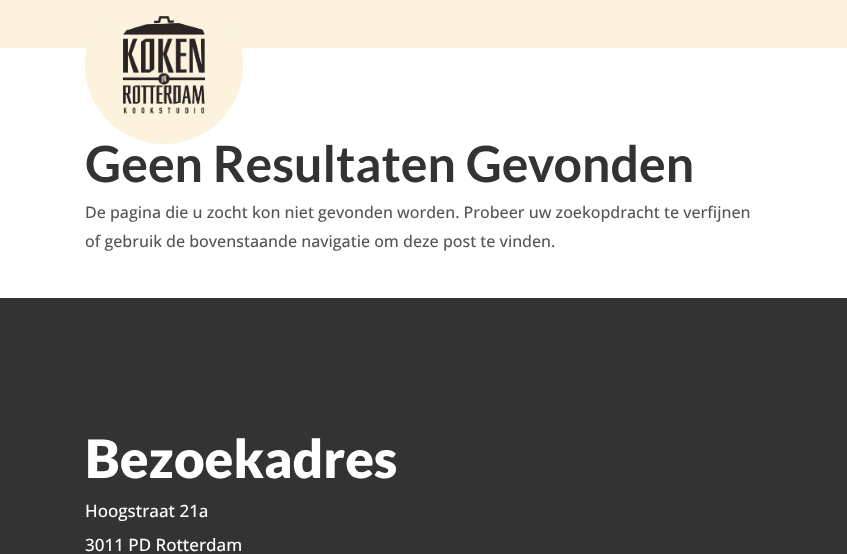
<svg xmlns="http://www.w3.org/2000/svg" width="847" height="554">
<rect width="100%" height="100%" fill="#fff"/>
<rect width="847" height="48" fill="#fcf2de"/>
<text x="85" y="182" style="font-family:Lato;font-size:50px;font-weight:bold;fill:#333">Geen Resultaten Gevonden</text>
<image x="85" y="16" width="158" height="129" href="media/1.png"/>
<text x="85" y="218" style="font-family:Open Sans;font-size:16px;font-weight:500;fill:#555">De pagina die u zocht kon niet gevonden worden. Probeer uw zoekopdracht te verfijnen</text>
<text x="85" y="247" style="font-family:Open Sans;font-size:16px;font-weight:500;fill:#555">of gebruik de bovenstaande navigatie om deze post te vinden.</text>
<rect y="298" width="847" height="256" fill="#333"/>
<text x="85" y="478" style="font-family:Lato;font-size:53px;font-weight:900;fill:#fff">Bezoekadres</text>
<text x="85" y="517" style="font-family:Open Sans;font-size:17px;font-weight:500;fill:#fff">Hoogstraat 21a</text>
<text x="85" y="551" style="font-family:Open Sans;font-size:17px;font-weight:500;fill:#fff">3011 PD Rotterdam</text>
</svg>
